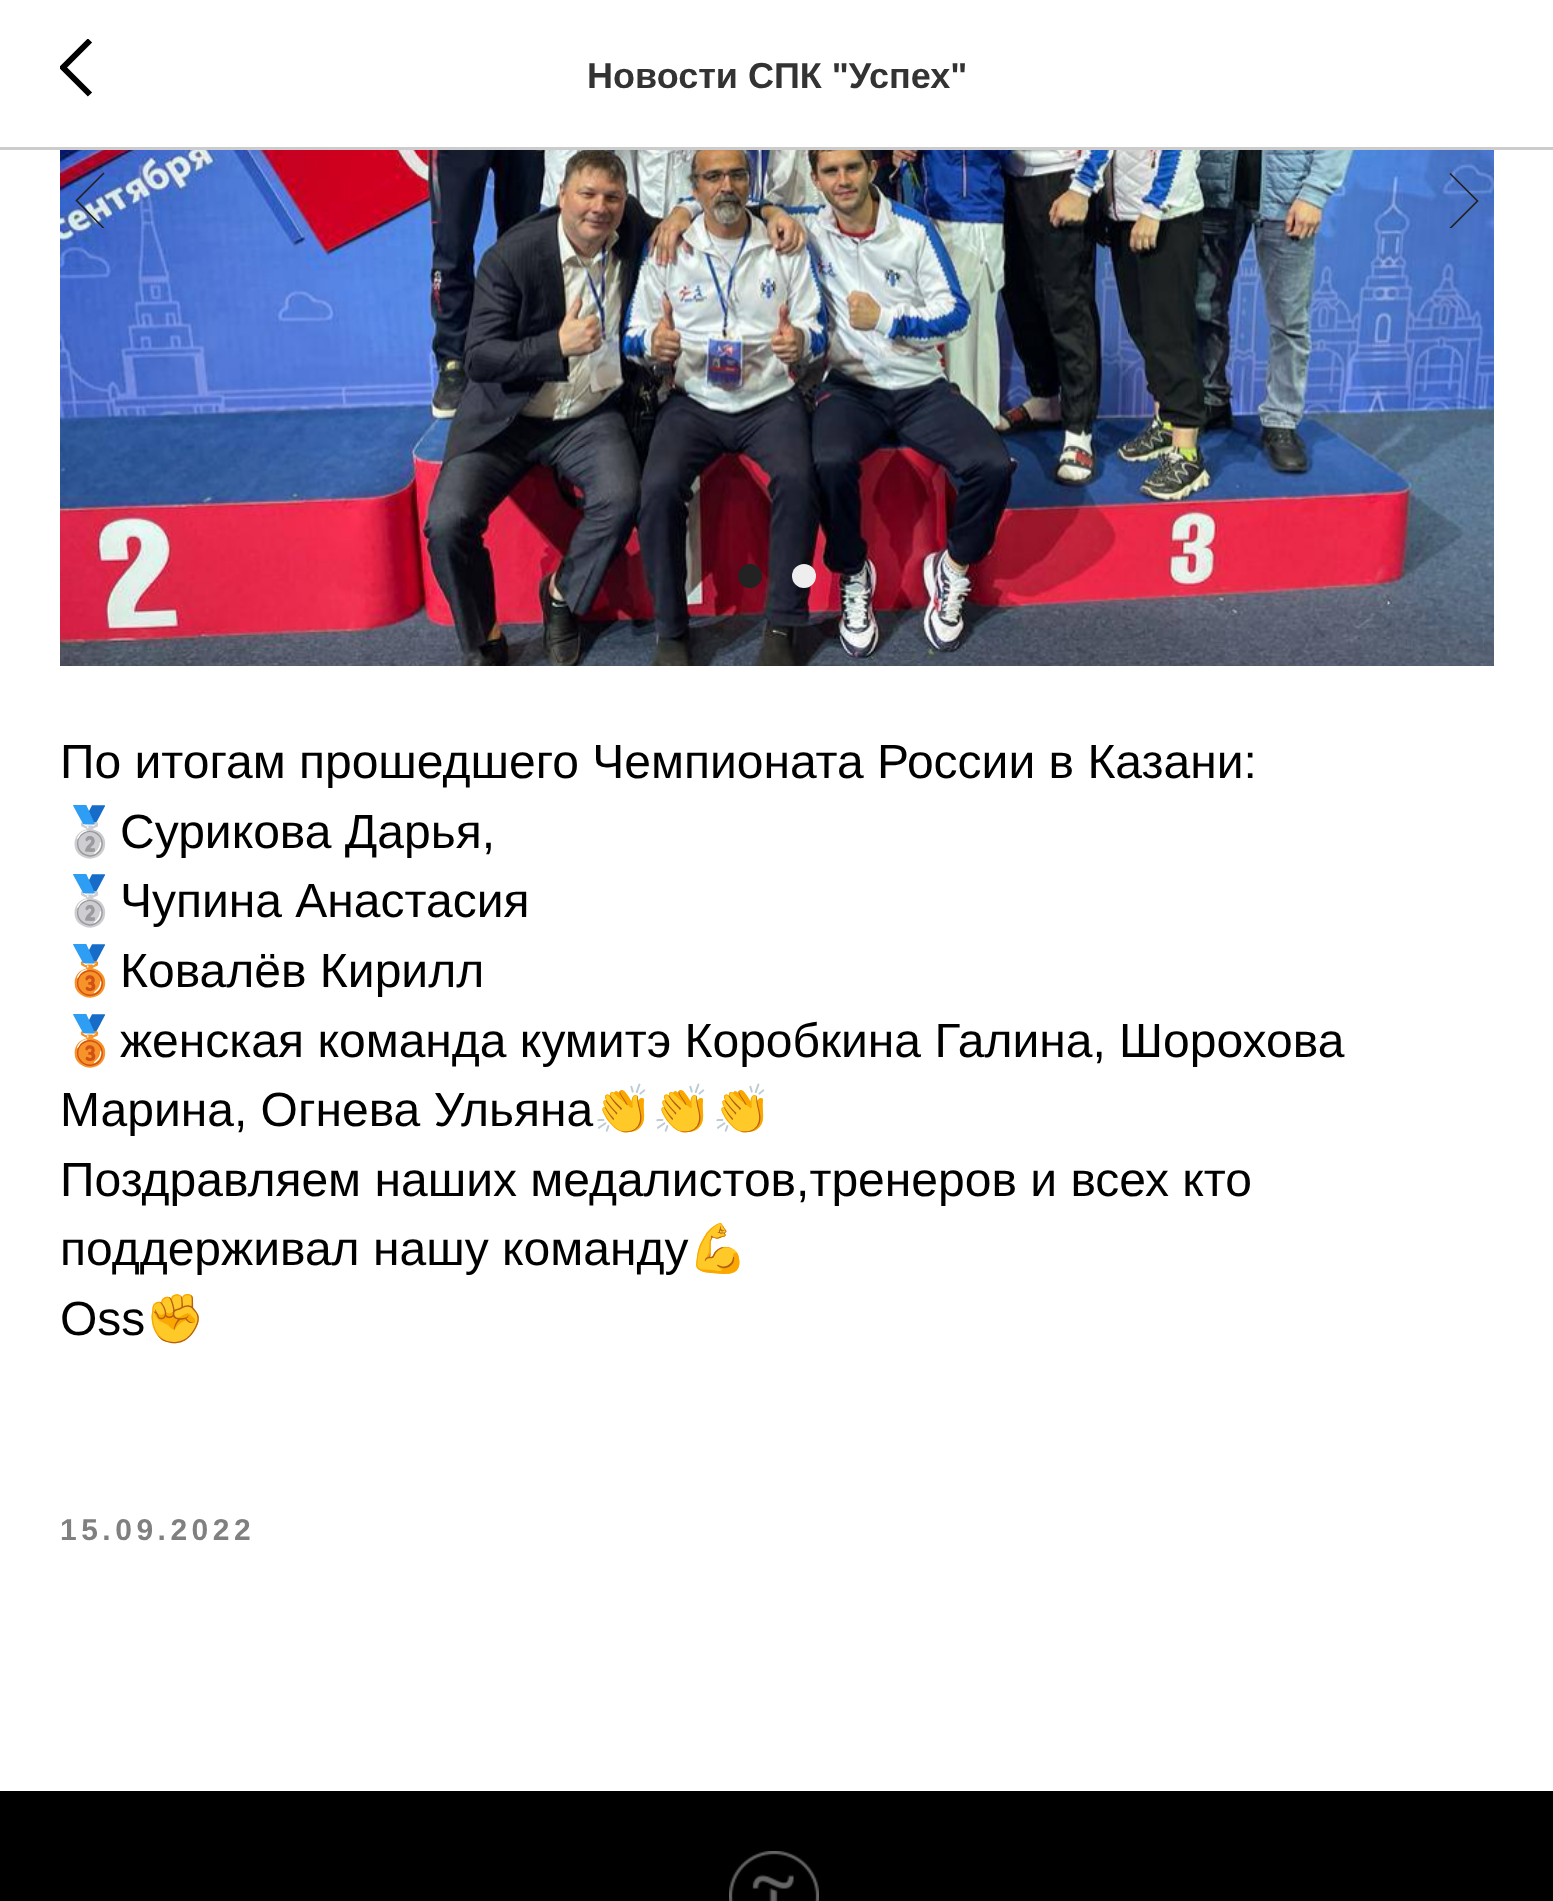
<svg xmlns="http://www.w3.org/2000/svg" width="1553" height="1901">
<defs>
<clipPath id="clip1"><rect x="60" y="39" width="33" height="60"/></clipPath>
<clipPath id="clip2"><rect x="75" y="171" width="30" height="57"/></clipPath>
<clipPath id="clip3"><rect x="1449" y="171" width="30" height="57"/></clipPath>
</defs>
<rect width="100%" height="100%" fill="#fff"/>
<rect y="147" width="1553" height="3" fill="#ccc"/>
<g clip-path="url(#clip1)">
<path d="M90 94.5l-27-27l27-27" fill="none" stroke="#000" stroke-width="6"/>
</g>
<text x="587" y="88" style="font-family:Liberation Sans;font-size:36px;font-weight:bold;fill:#333">Новости СПК "Успех"</text>
<image x="60" y="150" width="1434" height="516" href="media/1.png"/>
<g clip-path="url(#clip2)">
<path d="M104 228.5l-27.5-28l27.5-27.5" fill="none" stroke="#222" stroke-width="1.7"/>
</g>
<g clip-path="url(#clip3)">
<path d="M1450 173.5l27.5 27.5l-27.5 27.5" fill="none" stroke="#222" stroke-width="1.7"/>
</g>
<circle cx="750" cy="576" r="12" fill="#222"/>
<circle cx="804" cy="576" r="12" fill="#eee"/>
<text x="60" y="778" style="font-family:Liberation Sans;font-size:48px;fill:#000">По итогам прошедшего Чемпионата России в Казани:</text>
<text x="60" y="848" style="font-family:Noto Color Emoji;font-size:48px;fill:#000">🥈</text>
<text x="120" y="848" style="font-family:Liberation Sans;font-size:48px;fill:#000">Сурикова Дарья,</text>
<text x="60" y="917" style="font-family:Noto Color Emoji;font-size:48px;fill:#000">🥈</text>
<text x="120" y="917" style="font-family:Liberation Sans;font-size:48px;fill:#000">Чупина Анастасия</text>
<text x="60" y="987" style="font-family:Noto Color Emoji;font-size:48px;fill:#000">🥉</text>
<text x="120" y="987" style="font-family:Liberation Sans;font-size:48px;fill:#000">Ковалёв Кирилл</text>
<text x="60" y="1057" style="font-family:Noto Color Emoji;font-size:48px;fill:#000">🥉</text>
<text x="120" y="1057" style="font-family:Liberation Sans;font-size:48px;fill:#000">женская команда кумитэ Коробкина Галина, Шорохова</text>
<text x="60" y="1126" style="font-family:Liberation Sans;font-size:48px;fill:#000">Марина, Огнева Ульяна</text>
<text x="593" y="1126" style="font-family:Noto Color Emoji;font-size:48px;fill:#000">👏👏👏</text>
<text x="60" y="1196" style="font-family:Liberation Sans;font-size:48px;fill:#000">Поздравляем наших медалистов,тренеров и всех кто</text>
<text x="60" y="1265" style="font-family:Liberation Sans;font-size:48px;fill:#000">поддерживал нашу команду</text>
<text x="688" y="1265" style="font-family:Noto Color Emoji;font-size:48px;fill:#000">💪</text>
<text x="60" y="1335" style="font-family:Liberation Sans;font-size:48px;fill:#000">Oss</text>
<text x="145" y="1335" style="font-family:Noto Color Emoji;font-size:48px;fill:#000">✊</text>
<text x="60" y="1540" style="font-family:Liberation Sans;font-size:30px;font-weight:bold;letter-spacing:4.5px;fill:#808080">15.09.2022</text>
<rect y="1791" width="1553" height="110" fill="#000"/>
<image x="729" y="1851" width="90" height="50" href="media/2.png"/>
</svg>
